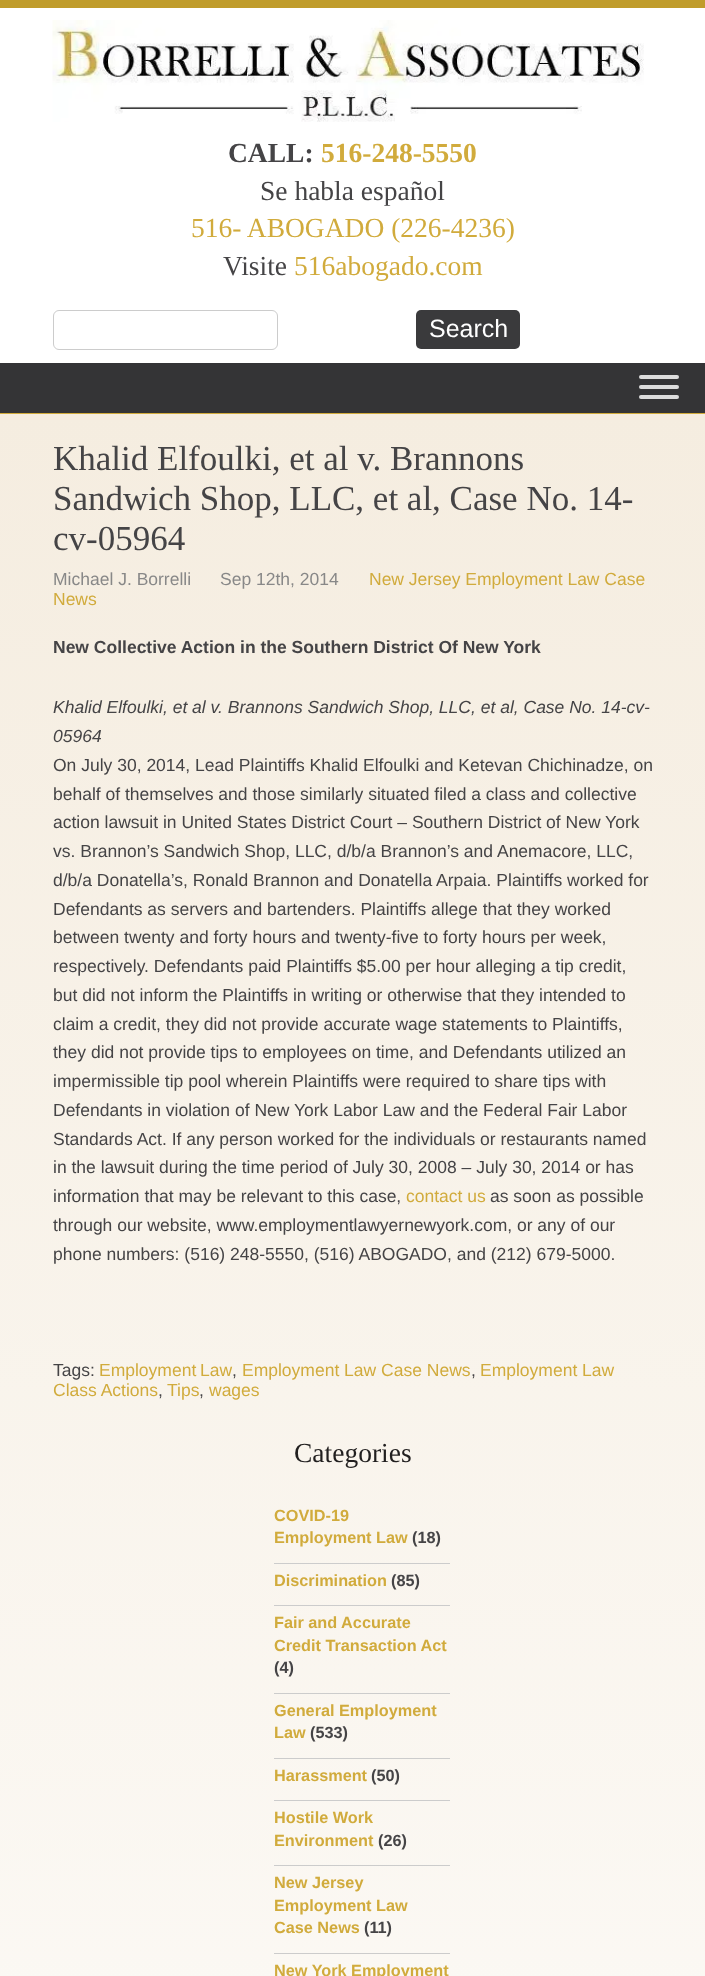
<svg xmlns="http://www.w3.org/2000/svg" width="705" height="1976">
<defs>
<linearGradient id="g1" gradientUnits="userSpaceOnUse" x1="352" y1="414" x2="353" y2="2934"><stop offset="0" stop-color="#f5ede0"/><stop offset="1" stop-color="#fff"/></linearGradient>
</defs>
<rect width="100%" height="100%" fill="#fff"/>
<rect width="705" height="8" fill="#c09c2b"/>
<image x="52" y="20" width="592" height="102" href="media/1.png"/>
<text x="228" y="162" style="font-family:Liberation Serif;font-size:27.5px;font-weight:bold;fill:#454446">CALL:</text>
<text x="321" y="162" style="font-family:Liberation Serif;font-size:27.5px;font-weight:bold;fill:#d1ab3c">516-248-5550</text>
<text x="260" y="200" style="font-family:Liberation Serif;font-size:27.5px;fill:#454446">Se habla español</text>
<text x="191" y="237" style="font-family:Liberation Serif;font-size:27.5px;fill:#d1ab3c">516- ABOGADO (226-4236)</text>
<text x="223" y="275" style="font-family:Liberation Serif;font-size:27.5px;fill:#454446">Visite</text>
<text x="294" y="275" style="font-family:Liberation Serif;font-size:27.5px;fill:#d1ab3c">516abogado.com</text>
<rect x="53.5" y="310.5" width="224" height="39" rx="5.5" fill="none" stroke="#ccc"/>
<rect x="416" y="310" width="104" height="39" rx="5" fill="#3a3a3c"/>
<text x="429" y="337" style="font-family:Liberation Sans;font-size:25px;fill:#fff">Search</text>
<rect y="363" width="705" height="50" fill="#343436"/>
<rect x="639" y="375" width="40" height="4" rx="2" fill="#ddd"/>
<rect x="639" y="385" width="40" height="4" rx="2" fill="#ddd"/>
<rect x="639" y="395" width="40" height="4" rx="2" fill="#ddd"/>
<rect y="414" width="705" height="1562" fill="url(#g1)"/>
<rect y="413" width="705" height="1" fill="#d1ab3c"/>
<text x="53" y="470" style="font-family:Liberation Serif;font-size:35px;fill:#454446">Khalid Elfoulki, et al v. Brannons</text>
<text x="53" y="510" style="font-family:Liberation Serif;font-size:35px;fill:#454446">Sandwich Shop, LLC, et al, Case No. 14-</text>
<text x="53" y="550" style="font-family:Liberation Serif;font-size:35px;fill:#454446">cv-05964</text>
<text x="53" y="585" style="font-family:Liberation Sans;font-size:17.5px;fill:#888">Michael J. Borrelli</text>
<text x="220" y="585" style="font-family:Liberation Sans;font-size:17.5px;fill:#888">Sep 12th, 2014</text>
<text x="369" y="585" style="font-family:Liberation Sans;font-size:17.5px;fill:#d1ab3c">New Jersey Employment Law Case</text>
<text x="53" y="605" style="font-family:Liberation Sans;font-size:17.5px;fill:#d1ab3c">News</text>
<text x="53" y="653" style="font-family:Liberation Sans;font-size:17.5px;font-weight:bold;fill:#454446">New Collective Action in the Southern District Of New York</text>
<text x="53" y="713" style="font-family:Liberation Sans;font-size:17.5px;font-style:italic;fill:#454446">Khalid Elfoulki, et al v. Brannons Sandwich Shop, LLC, et al, Case No. 14-cv-</text>
<text x="53" y="742" style="font-family:Liberation Sans;font-size:17.5px;font-style:italic;fill:#454446">05964</text>
<text x="53" y="771" style="font-family:Liberation Sans;font-size:17.5px;fill:#454446">On July 30, 2014, Lead Plaintiffs Khalid Elfoulki and Ketevan Chichinadze, on</text>
<text x="53" y="800" style="font-family:Liberation Sans;font-size:17.5px;fill:#454446">behalf of themselves and those similarly situated filed a class and collective</text>
<text x="53" y="828" style="font-family:Liberation Sans;font-size:17.5px;fill:#454446">action lawsuit in United States District Court – Southern District of New York</text>
<text x="53" y="857" style="font-family:Liberation Sans;font-size:17.5px;fill:#454446">vs. Brannon’s Sandwich Shop, LLC, d/b/a Brannon’s and Anemacore, LLC,</text>
<text x="53" y="886" style="font-family:Liberation Sans;font-size:17.5px;fill:#454446">d/b/a Donatella’s, Ronald Brannon and Donatella Arpaia. Plaintiffs worked for</text>
<text x="53" y="915" style="font-family:Liberation Sans;font-size:17.5px;fill:#454446">Defendants as servers and bartenders. Plaintiffs allege that they worked</text>
<text x="53" y="943" style="font-family:Liberation Sans;font-size:17.5px;fill:#454446">between twenty and forty hours and twenty-five to forty hours per week,</text>
<text x="53" y="972" style="font-family:Liberation Sans;font-size:17.5px;fill:#454446">respectively. Defendants paid Plaintiffs $5.00 per hour alleging a tip credit,</text>
<text x="53" y="1001" style="font-family:Liberation Sans;font-size:17.5px;fill:#454446">but did not inform the Plaintiffs in writing or otherwise that they intended to</text>
<text x="53" y="1030" style="font-family:Liberation Sans;font-size:17.5px;fill:#454446">claim a credit, they did not provide accurate wage statements to Plaintiffs,</text>
<text x="53" y="1058" style="font-family:Liberation Sans;font-size:17.5px;fill:#454446">they did not provide tips to employees on time, and Defendants utilized an</text>
<text x="53" y="1087" style="font-family:Liberation Sans;font-size:17.5px;fill:#454446">impermissible tip pool wherein Plaintiffs were required to share tips with</text>
<text x="53" y="1116" style="font-family:Liberation Sans;font-size:17.5px;fill:#454446">Defendants in violation of New York Labor Law and the Federal Fair Labor</text>
<text x="53" y="1145" style="font-family:Liberation Sans;font-size:17.5px;fill:#454446">Standards Act. If any person worked for the individuals or restaurants named</text>
<text x="53" y="1173" style="font-family:Liberation Sans;font-size:17.5px;fill:#454446">in the lawsuit during the time period of July 30, 2008 – July 30, 2014 or has</text>
<text x="53" y="1202" style="font-family:Liberation Sans;font-size:17.5px;fill:#454446">information that may be relevant to this case,</text>
<text x="406" y="1202" style="font-family:Liberation Sans;font-size:17.5px;fill:#d1ab3c">contact us</text>
<text x="490" y="1202" style="font-family:Liberation Sans;font-size:17.5px;fill:#454446">as soon as possible</text>
<text x="53" y="1231" style="font-family:Liberation Sans;font-size:17.5px;fill:#454446">through our website, www.employmentlawyernewyork.com, or any of our</text>
<text x="53" y="1260" style="font-family:Liberation Sans;font-size:17.5px;fill:#454446">phone numbers: (516) 248-5550, (516) ABOGADO, and (212) 679-5000.</text>
<text x="53" y="1376" style="font-family:Liberation Sans;font-size:17.5px;fill:#454446">Tags:</text>
<text x="99" y="1376" word-spacing="-1" style="font-family:Liberation Sans;font-size:17.5px;fill:#d1ab3c">Employment Law</text>
<text x="232" y="1376" style="font-family:Liberation Sans;font-size:17.5px;fill:#454446">,</text>
<text x="242" y="1376" style="font-family:Liberation Sans;font-size:17.5px;fill:#d1ab3c">Employment Law Case News</text>
<text x="471" y="1376" style="font-family:Liberation Sans;font-size:17.5px;fill:#454446">,</text>
<text x="480" y="1376" style="font-family:Liberation Sans;font-size:17.5px;fill:#d1ab3c">Employment Law</text>
<text x="53" y="1396" style="font-family:Liberation Sans;font-size:17.5px;fill:#d1ab3c">Class Actions</text>
<text x="158" y="1396" style="font-family:Liberation Sans;font-size:17.5px;fill:#454446">,</text>
<text x="167" y="1396" style="font-family:Liberation Sans;font-size:17.5px;fill:#d1ab3c">Tips</text>
<text x="199" y="1396" style="font-family:Liberation Sans;font-size:17.5px;fill:#454446">,</text>
<text x="209" y="1396" style="font-family:Liberation Sans;font-size:17.5px;fill:#d1ab3c">wages</text>
<text x="294" y="1462" style="font-family:Liberation Serif;font-size:27.5px;fill:#211f1f">Categories</text>
<rect x="274" y="1563" width="176" height="1" fill="#ccc"/>
<text x="274" y="1521" style="font-family:Liberation Sans;font-size:16.25px;font-weight:bold;fill:#d1ab3c">COVID-19</text>
<text x="274" y="1543" style="font-family:Liberation Sans;font-size:16.25px;font-weight:bold;fill:#d1ab3c">Employment Law</text>
<text x="412" y="1543" style="font-family:Liberation Sans;font-size:16.25px;font-weight:bold;fill:#454446">(18)</text>
<rect x="274" y="1605" width="176" height="1" fill="#ccc"/>
<text x="274" y="1586" style="font-family:Liberation Sans;font-size:16.25px;font-weight:bold;fill:#d1ab3c">Discrimination</text>
<text x="391" y="1586" style="font-family:Liberation Sans;font-size:16.25px;font-weight:bold;fill:#454446">(85)</text>
<rect x="274" y="1693" width="176" height="1" fill="#ccc"/>
<text x="274" y="1628" style="font-family:Liberation Sans;font-size:16.25px;font-weight:bold;fill:#d1ab3c">Fair and Accurate</text>
<text x="274" y="1651" style="font-family:Liberation Sans;font-size:16.25px;font-weight:bold;fill:#d1ab3c">Credit Transaction Act</text>
<text x="274" y="1673" style="font-family:Liberation Sans;font-size:16.25px;font-weight:bold;fill:#454446">(4)</text>
<rect x="274" y="1758" width="176" height="1" fill="#ccc"/>
<text x="274" y="1716" style="font-family:Liberation Sans;font-size:16.25px;font-weight:bold;fill:#d1ab3c">General Employment</text>
<text x="274" y="1738" style="font-family:Liberation Sans;font-size:16.25px;font-weight:bold;fill:#d1ab3c">Law</text>
<text x="310" y="1738" style="font-family:Liberation Sans;font-size:16.25px;font-weight:bold;fill:#454446">(533)</text>
<rect x="274" y="1800" width="176" height="1" fill="#ccc"/>
<text x="274" y="1781" style="font-family:Liberation Sans;font-size:16.25px;font-weight:bold;fill:#d1ab3c">Harassment</text>
<text x="371" y="1781" style="font-family:Liberation Sans;font-size:16.25px;font-weight:bold;fill:#454446">(50)</text>
<rect x="274" y="1865" width="176" height="1" fill="#ccc"/>
<text x="274" y="1823" style="font-family:Liberation Sans;font-size:16.25px;font-weight:bold;fill:#d1ab3c">Hostile Work</text>
<text x="274" y="1846" style="font-family:Liberation Sans;font-size:16.25px;font-weight:bold;fill:#d1ab3c">Environment</text>
<text x="378" y="1846" style="font-family:Liberation Sans;font-size:16.25px;font-weight:bold;fill:#454446">(26)</text>
<rect x="274" y="1953" width="176" height="1" fill="#ccc"/>
<text x="274" y="1888" style="font-family:Liberation Sans;font-size:16.25px;font-weight:bold;fill:#d1ab3c">New Jersey</text>
<text x="274" y="1911" style="font-family:Liberation Sans;font-size:16.25px;font-weight:bold;fill:#d1ab3c">Employment Law</text>
<text x="274" y="1933" style="font-family:Liberation Sans;font-size:16.25px;font-weight:bold;fill:#d1ab3c">Case News</text>
<text x="364" y="1933" style="font-family:Liberation Sans;font-size:16.25px;font-weight:bold;fill:#454446">(11)</text>
<text x="274" y="1976" style="font-family:Liberation Sans;font-size:16.25px;font-weight:bold;fill:#d1ab3c">New York Employment</text>
</svg>
